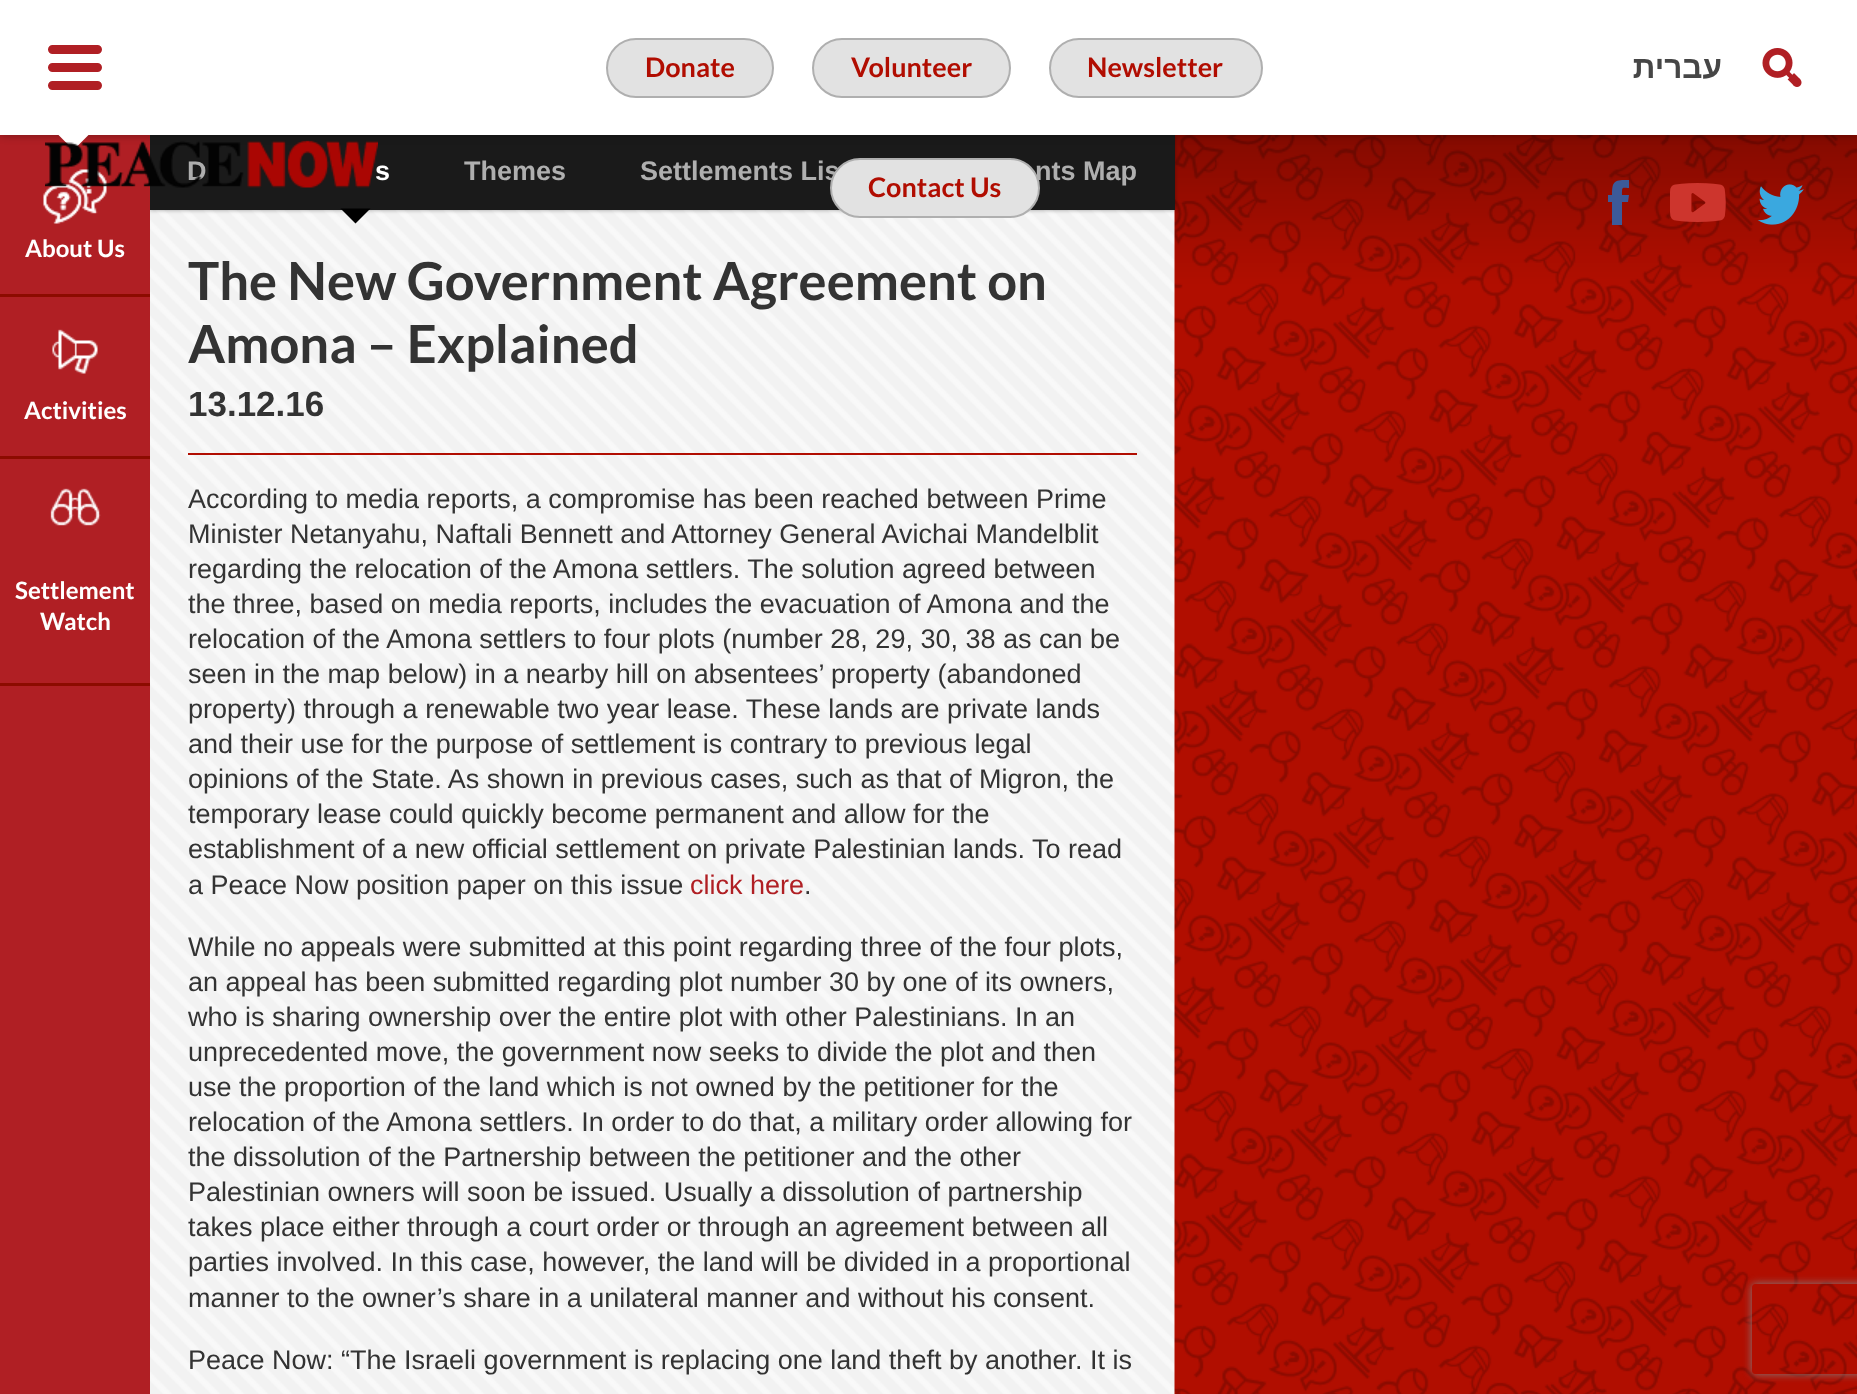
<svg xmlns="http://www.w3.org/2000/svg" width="1857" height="1394">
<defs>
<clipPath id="clip1"><path d="M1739 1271h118v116h-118zm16 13h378c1.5 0 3 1.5 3 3v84c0 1.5-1.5 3-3 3h-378c-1.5 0-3-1.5-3-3v-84c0-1.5 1.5-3 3-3z" clip-rule="evenodd"/></clipPath>
</defs>
<rect width="100%" height="100%" fill="#fff"/>
<image x="150" y="210" width="1025" height="1184" href="media/8.png"/>
<image x="1174" y="135" width="683" height="1259" href="media/9.png"/>
<rect x="150" y="135" width="1025" height="75" fill="#00000059" filter="blur(2px)"/>
<rect y="135" width="150" height="1259" fill="#b01f24"/>
<rect x="150" y="135" width="1025" height="75" fill="#1a1a1a"/>
<rect width="1857" height="135" fill="#00000059" filter="blur(4px)"/>
<rect width="1857" height="135" fill="#fff"/>
<path d="M52.5 49.5h45m-45 36h45m-45-18h45" fill="none" stroke="#b01f24" stroke-width="9" stroke-linecap="round"/>
<path d="M58.5 135h30l-15 15z" fill="#fff"/>
<image x="43" y="169" width="64" height="55" href="media/5.png"/>
<text x="187" y="180" style="font-family:Liberation Sans;font-size:27px;font-weight:bold;fill:#afafaf">D</text>
<text x="375" y="180" style="font-family:Liberation Sans;font-size:27px;font-weight:bold;fill:#fff">s</text>
<image x="45" y="140" width="333" height="48" href="media/1.png"/>
<rect x="607" y="39" width="166" height="58" rx="29" fill="#e2e2e2" stroke="#afafaf" stroke-width="2"/>
<text x="645" y="77" style="font-family:Lato;font-size:27px;font-weight:bold;fill:#b10d01">Donate</text>
<rect x="813" y="39" width="197" height="58" rx="29" fill="#e2e2e2" stroke="#afafaf" stroke-width="2"/>
<text x="851" y="77" style="font-family:Lato;font-size:27px;font-weight:bold;fill:#b10d01">Volunteer</text>
<rect x="1050" y="39" width="212" height="58" rx="29" fill="#e2e2e2" stroke="#afafaf" stroke-width="2"/>
<text x="1087" y="77" style="font-family:Lato;font-size:27px;font-weight:bold;fill:#b10d01">Newsletter</text>
<text x="640" y="180" style="font-family:Liberation Sans;font-size:27px;font-weight:bold;fill:#afafaf">Settlements Lis</text>
<text x="1035" y="180" style="font-family:Liberation Sans;font-size:27px;font-weight:bold;fill:#afafaf">nts Map</text>
<rect x="831" y="159" width="208" height="58" rx="29" fill="#e2e2e2" stroke="#afafaf" stroke-width="2"/>
<text x="868" y="197" style="font-family:Lato;font-size:27px;font-weight:bold;fill:#b10d01">Contact Us</text>
<text x="1722" y="78" style="font-family:Liberation Sans;font-size:31.5px;font-weight:bold;direction:rtl;fill:#464646">עברית</text>
<image x="1762" y="48" width="40" height="39" href="media/2.png"/>
<path d="M1622 195c0-9 0-7 7-7v-8c-14 0-17 0-17 15h-4v7h4v23h10v-23h6l1-7z" fill="#3c5a99"/>
<image x="1670" y="183" width="56" height="39" href="media/3.png"/>
<image x="1757" y="184" width="47" height="41" href="media/4.png"/>
<rect y="294" width="150" height="3" fill="#8c0b00"/>
<text x="25" y="257" style="font-family:Lato;font-size:24px;font-weight:bold;fill:#fff">About Us</text>
<image x="52" y="329" width="46" height="45" href="media/6.png"/>
<rect y="456" width="150" height="3" fill="#8c0b00"/>
<text x="24" y="419" style="font-family:Lato;font-size:24px;font-weight:bold;fill:#fff">Activities</text>
<image x="50" y="488" width="51" height="38" href="media/7.png"/>
<rect y="683" width="150" height="3" fill="#8c0b00"/>
<text x="15" y="599" style="font-family:Lato;font-size:24px;font-weight:bold;fill:#fff">Settlement</text>
<text x="40" y="630" style="font-family:Lato;font-size:24px;font-weight:bold;fill:#fff">Watch</text>
<path d="M340.5 208.5h30l-15 15z" fill="#000"/>
<text x="464" y="180" style="font-family:Liberation Sans;font-size:27px;font-weight:bold;fill:#afafaf">Themes</text>
<text x="188" y="300" style="font-family:Lato;font-size:52.5px;font-weight:bold;fill:#333">The New Government Agreement on</text>
<text x="188" y="363" style="font-family:Lato;font-size:52.5px;font-weight:bold;fill:#333">Amona – Explained</text>
<text x="188" y="416" style="font-family:Liberation Sans;font-size:35px;font-weight:bold;fill:#333">13.12.16</text>
<rect x="188" y="453" width="949" height="2" fill="#b10d01"/>
<text x="188" y="508" style="font-family:Liberation Sans;font-size:27px;fill:#333">According to media reports, a compromise has been reached between Prime</text>
<text x="188" y="543" style="font-family:Liberation Sans;font-size:27px;fill:#333">Minister Netanyahu, Naftali Bennett and Attorney General Avichai Mandelblit</text>
<text x="188" y="578" style="font-family:Liberation Sans;font-size:27px;fill:#333">regarding the relocation of the Amona settlers. The solution agreed between</text>
<text x="188" y="613" style="font-family:Liberation Sans;font-size:27px;fill:#333">the three, based on media reports, includes the evacuation of Amona and the</text>
<text x="188" y="648" style="font-family:Liberation Sans;font-size:27px;fill:#333">relocation of the Amona settlers to four plots (number 28, 29, 30, 38 as can be</text>
<text x="188" y="683" style="font-family:Liberation Sans;font-size:27px;fill:#333">seen in the map below) in a nearby hill on absentees’ property (abandoned</text>
<text x="188" y="718" style="font-family:Liberation Sans;font-size:27px;fill:#333">property) through a renewable two year lease. These lands are private lands</text>
<text x="188" y="753" style="font-family:Liberation Sans;font-size:27px;fill:#333">and their use for the purpose of settlement is contrary to previous legal</text>
<text x="188" y="788" style="font-family:Liberation Sans;font-size:27px;fill:#333">opinions of the State. As shown in previous cases, such as that of Migron, the</text>
<text x="188" y="823" style="font-family:Liberation Sans;font-size:27px;fill:#333">temporary lease could quickly become permanent and allow for the</text>
<text x="188" y="858" style="font-family:Liberation Sans;font-size:27px;fill:#333">establishment of a new official settlement on private Palestinian lands. To read</text>
<text x="188" y="894" style="font-family:Liberation Sans;font-size:27px;fill:#333">a Peace Now position paper on this issue</text>
<text x="690" y="894" style="font-family:Liberation Sans;font-size:27px;fill:#b01f24">click here</text>
<text x="804" y="894" style="font-family:Liberation Sans;font-size:27px;fill:#333">.</text>
<text x="188" y="956" style="font-family:Liberation Sans;font-size:27px;fill:#333">While no appeals were submitted at this point regarding three of the four plots,</text>
<text x="188" y="991" style="font-family:Liberation Sans;font-size:27px;fill:#333">an appeal has been submitted regarding plot number 30 by one of its owners,</text>
<text x="188" y="1026" style="font-family:Liberation Sans;font-size:27px;fill:#333">who is sharing ownership over the entire plot with other Palestinians. In an</text>
<text x="188" y="1061" style="font-family:Liberation Sans;font-size:27px;fill:#333">unprecedented move, the government now seeks to divide the plot and then</text>
<text x="188" y="1096" style="font-family:Liberation Sans;font-size:27px;fill:#333">use the proportion of the land which is not owned by the petitioner for the</text>
<text x="188" y="1131" style="font-family:Liberation Sans;font-size:27px;fill:#333">relocation of the Amona settlers. In order to do that, a military order allowing for</text>
<text x="188" y="1166" style="font-family:Liberation Sans;font-size:27px;fill:#333">the dissolution of the Partnership between the petitioner and the other</text>
<text x="188" y="1201" style="font-family:Liberation Sans;font-size:27px;fill:#333">Palestinian owners will soon be issued. Usually a dissolution of partnership</text>
<text x="188" y="1236" style="font-family:Liberation Sans;font-size:27px;fill:#333">takes place either through a court order or through an agreement between all</text>
<text x="188" y="1271" style="font-family:Liberation Sans;font-size:27px;fill:#333">parties involved. In this case, however, the land will be divided in a proportional</text>
<text x="188" y="1307" style="font-family:Liberation Sans;font-size:27px;fill:#333">manner to the owner’s share in a unilateral manner and without his consent.</text>
<text x="188" y="1369" style="font-family:Liberation Sans;font-size:27px;fill:#333">Peace Now: “The Israeli government is replacing one land theft by another. It is</text>
<g clip-path="url(#clip1)">
<rect x="1752" y="1284" width="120" height="90" rx="3" fill="#808080" filter="blur(4px)"/>
</g>
</svg>
